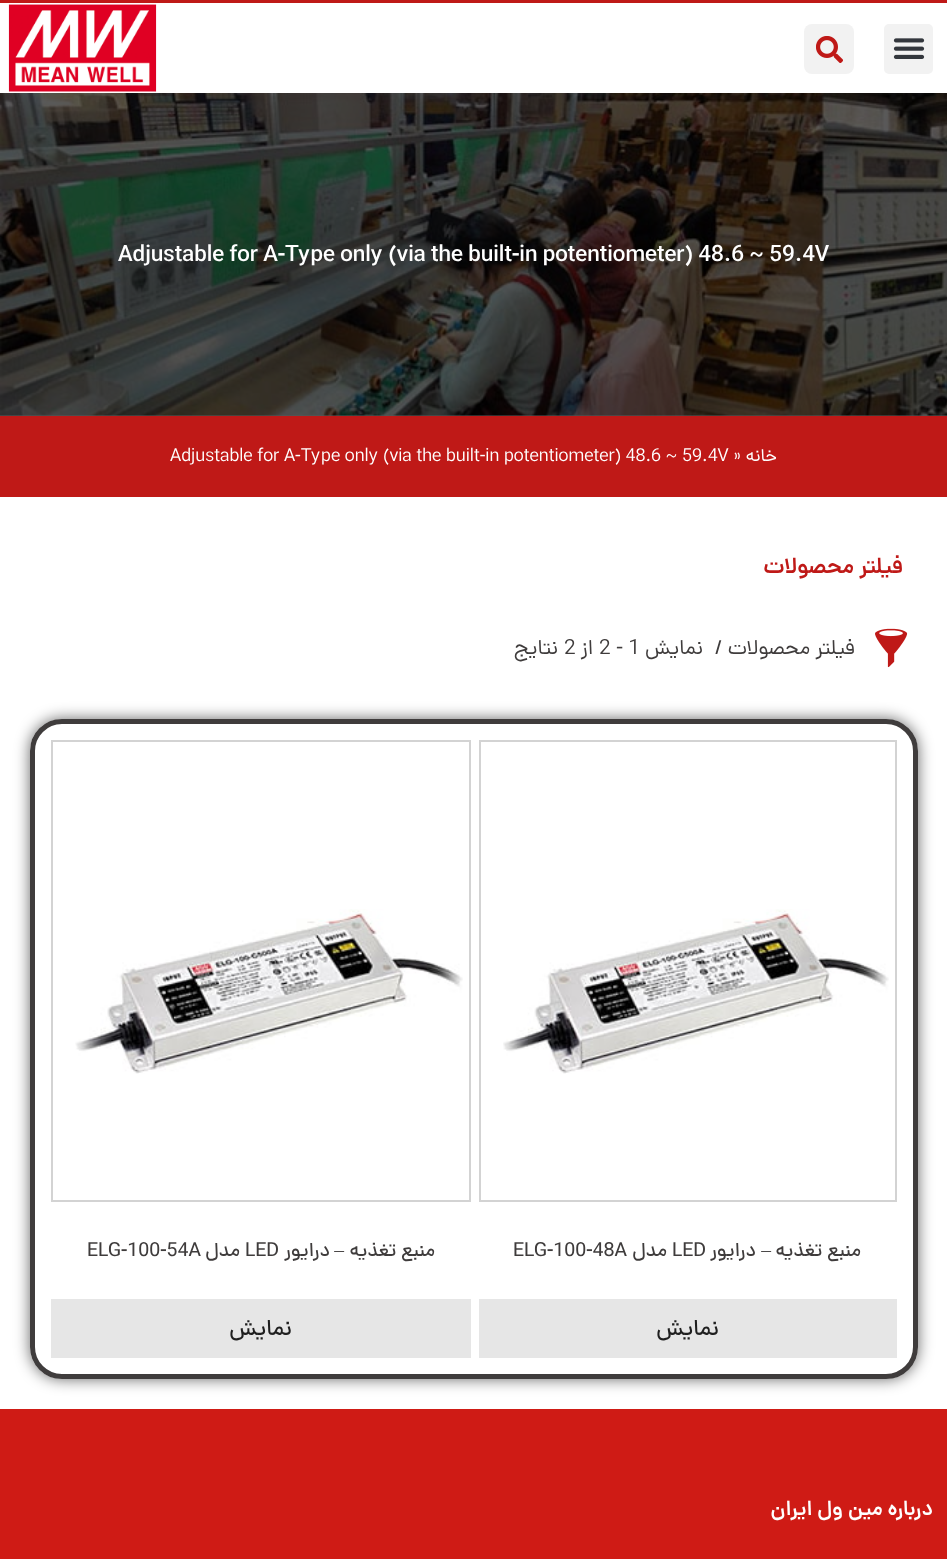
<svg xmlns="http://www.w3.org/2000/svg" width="947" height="1559">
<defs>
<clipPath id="clip1"><path d="M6 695h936v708h-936zm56 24h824c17.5 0 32 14.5 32 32v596c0 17.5-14.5 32-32 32h-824c-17.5 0-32-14.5-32-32v-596c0-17.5 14.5-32 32-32z" clip-rule="evenodd"/></clipPath>
</defs>
<rect width="100%" height="100%" fill="#fff"/>
<rect y="415" width="947" height="1" fill="#595959"/>
<rect width="947" height="3" fill="#bf1917"/>
<image x="8" y="4" width="149" height="88" href="media/1.png"/>
<rect x="804" y="24" width="50" height="50" rx="8" fill="#f2f2f2"/>
<image x="816" y="36" width="27" height="27" href="media/2.png"/>
<rect x="884" y="24" width="49" height="50" rx="5" fill="#f2f2f2"/>
<image x="893" y="38" width="32" height="21" href="media/3.png"/>
<image x="0" y="93" width="947" height="323" href="media/4.png"/>
<text x="118" y="261" style="font-family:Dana;font-size:22.5px;font-weight:600;fill:#fff">Adjustable for A-Type only (via the built-in potentiometer) 48.6 ~ 59.4V</text>
<rect y="416" width="947" height="81" fill="#bf1917"/>
<text x="170" y="461" style="font-family:Dana;font-size:17.85px;fill:#fff">Adjustable for A-Type only (via the built-in potentiometer) 48.6 ~ 59.4V</text>
<text x="733" y="461" style="font-family:Dana;font-size:17.85px;fill:#fff">»</text>
<text x="777" y="461" style="font-family:Dana;font-size:17.85px;direction:rtl;fill:#fff">خانه</text>
<text x="903" y="573" style="font-family:Dana;font-size:22.5px;font-weight:600;direction:rtl;fill:#bf1917">فیلتر محصولات</text>
<text x="558" y="654" style="font-family:Dana;font-size:21px;direction:rtl;fill:#3f3c3c">نتایج</text>
<text x="564" y="654" style="font-family:Dana;font-size:21px;fill:#3f3c3c">2</text>
<text x="593" y="654" style="font-family:Dana;font-size:21px;direction:rtl;fill:#3f3c3c">از</text>
<text x="599" y="654" style="font-family:Dana;font-size:21px;fill:#3f3c3c">2 - 1</text>
<text x="703" y="654" style="font-family:Dana;font-size:21px;direction:rtl;fill:#3f3c3c">نمایش</text>
<text x="715" y="654" style="font-family:Dana;font-size:21px;fill:#3f3c3c">/</text>
<text x="855" y="654" style="font-family:Dana;font-size:21px;direction:rtl;fill:#3f3c3c">فیلتر محصولات</text>
<image x="875" y="628" width="33" height="40" href="media/5.png"/>
<g clip-path="url(#clip1)">
<rect x="30" y="719" width="888" height="660" rx="32" fill="#00000099" filter="blur(7.5px)"/>
</g>
<rect x="32.5" y="721.5" width="883" height="655" rx="29.5" fill="none" stroke="#3f3c3c" stroke-width="5"/>
<rect x="52" y="741" width="418" height="460" fill="none" stroke="#d3d3d3" stroke-width="2"/>
<image x="75" y="909" width="388" height="165" href="media/6.png"/>
<text x="87" y="1256" style="font-family:Dana;font-size:19.5px;font-weight:500;fill:#3f3c3c">ELG-100-54A</text>
<text x="240" y="1256" style="font-family:Dana;font-size:19.5px;font-weight:500;direction:rtl;fill:#3f3c3c">مدل</text>
<text x="245" y="1256" style="font-family:Dana;font-size:19.5px;font-weight:500;fill:#3f3c3c">LED</text>
<text x="330" y="1256" style="font-family:Dana;font-size:19.5px;font-weight:500;direction:rtl;fill:#3f3c3c">درایور</text>
<text x="344" y="1256" style="font-family:Liberation Serif;font-size:19.5px;direction:rtl;fill:#3f3c3c">–</text>
<text x="435" y="1256" style="font-family:Dana;font-size:19.5px;font-weight:500;direction:rtl;fill:#3f3c3c">منبع تغذیه</text>
<rect x="51" y="1299" width="420" height="59" fill="#e6e6e6"/>
<text x="292" y="1335" style="font-family:Dana;font-size:22.5px;font-weight:500;direction:rtl;fill:#1f1f1f">نمایش</text>
<rect x="480" y="741" width="416" height="460" fill="none" stroke="#d3d3d3" stroke-width="2"/>
<image x="503" y="909" width="386" height="165" href="media/7.png"/>
<text x="513" y="1256" style="font-family:Dana;font-size:19.5px;font-weight:500;fill:#3f3c3c">ELG-100-48A</text>
<text x="667" y="1256" style="font-family:Dana;font-size:19.5px;font-weight:500;direction:rtl;fill:#3f3c3c">مدل</text>
<text x="672" y="1256" style="font-family:Dana;font-size:19.5px;font-weight:500;fill:#3f3c3c">LED</text>
<text x="756" y="1256" style="font-family:Dana;font-size:19.5px;font-weight:500;direction:rtl;fill:#3f3c3c">درایور</text>
<text x="771" y="1256" style="font-family:Liberation Serif;font-size:19.5px;direction:rtl;fill:#3f3c3c">–</text>
<text x="861" y="1256" style="font-family:Dana;font-size:19.5px;font-weight:500;direction:rtl;fill:#3f3c3c">منبع تغذیه</text>
<rect x="479" y="1299" width="418" height="59" fill="#e6e6e6"/>
<text x="719" y="1335" style="font-family:Dana;font-size:22.5px;font-weight:500;direction:rtl;fill:#1f1f1f">نمایش</text>
<rect y="1409" width="947" height="150" fill="#cf1b15"/>
<text x="933" y="1515" style="font-family:Dana;font-size:21px;font-weight:600;direction:rtl;fill:#fff">درباره مین ول ایران</text>
</svg>
